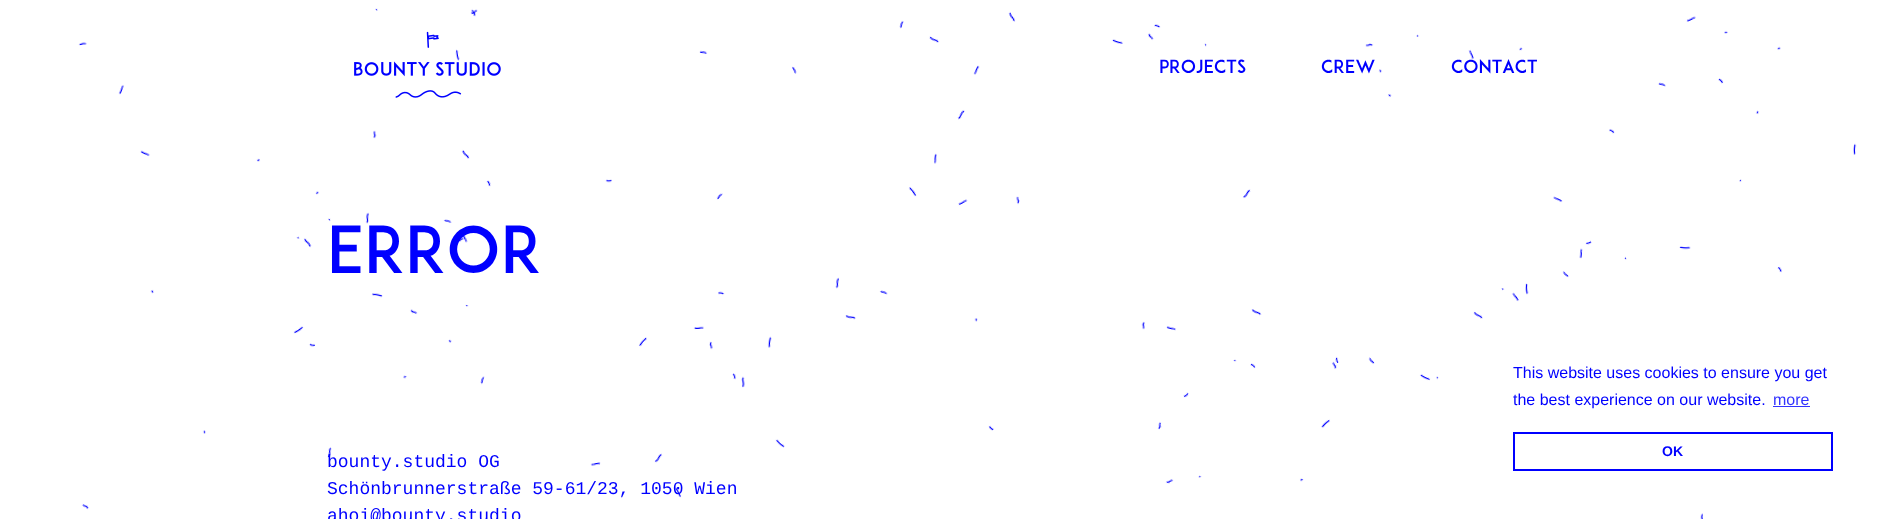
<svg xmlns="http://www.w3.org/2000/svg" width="1881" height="519">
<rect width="100%" height="100%" fill="#fff"/>
<image x="78" y="8" width="1779" height="511" href="media/1.png"/>
<image x="354" y="31" width="147" height="67" href="media/2.png"/>
<text x="1159" y="73" style="font-family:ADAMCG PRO;font-size:18px;fill:#00f">Projects</text>
<text x="1321" y="73" style="font-family:ADAMCG PRO;font-size:18px;fill:#00f">Crew</text>
<text x="1451" y="73" style="font-family:ADAMCG PRO;font-size:18px;fill:#00f">Contact</text>
<text x="327" y="273" style="font-family:ADAMCG PRO;font-size:64px;fill:#00f">Error</text>
<text x="327" y="467" style="font-family:Liberation Mono;font-size:18px;fill:#00f">bounty.studio OG</text>
<text x="327" y="494" style="font-family:Liberation Mono;font-size:18px;fill:#00f">Schönbrunnerstraße 59-61/23, 1050 Wien</text>
<text x="327" y="521" style="font-family:Liberation Mono;font-size:18px;fill:#00f">ahoi@bounty.studio</text>
<rect x="1493" y="337" width="353" height="163" fill="#fff"/>
<text x="1513" y="378" style="font-family:Liberation Sans;font-size:16px;fill:#00f">This website uses cookies to ensure you get</text>
<text x="1513" y="405" style="font-family:Liberation Sans;font-size:16px;fill:#00f">the best experience on our website.</text>
<text x="1773" y="405" style="font-family:Liberation Sans;font-size:16px;fill:#33f">more</text>
<rect x="1773" y="406" width="37" height="1" fill="#33f"/>
<rect x="1514" y="433" width="318" height="37" fill="none" stroke="#00f" stroke-width="2"/>
<text x="1662" y="456" style="font-family:Liberation Sans;font-size:14px;font-weight:bold;fill:#00f">OK</text>
</svg>
